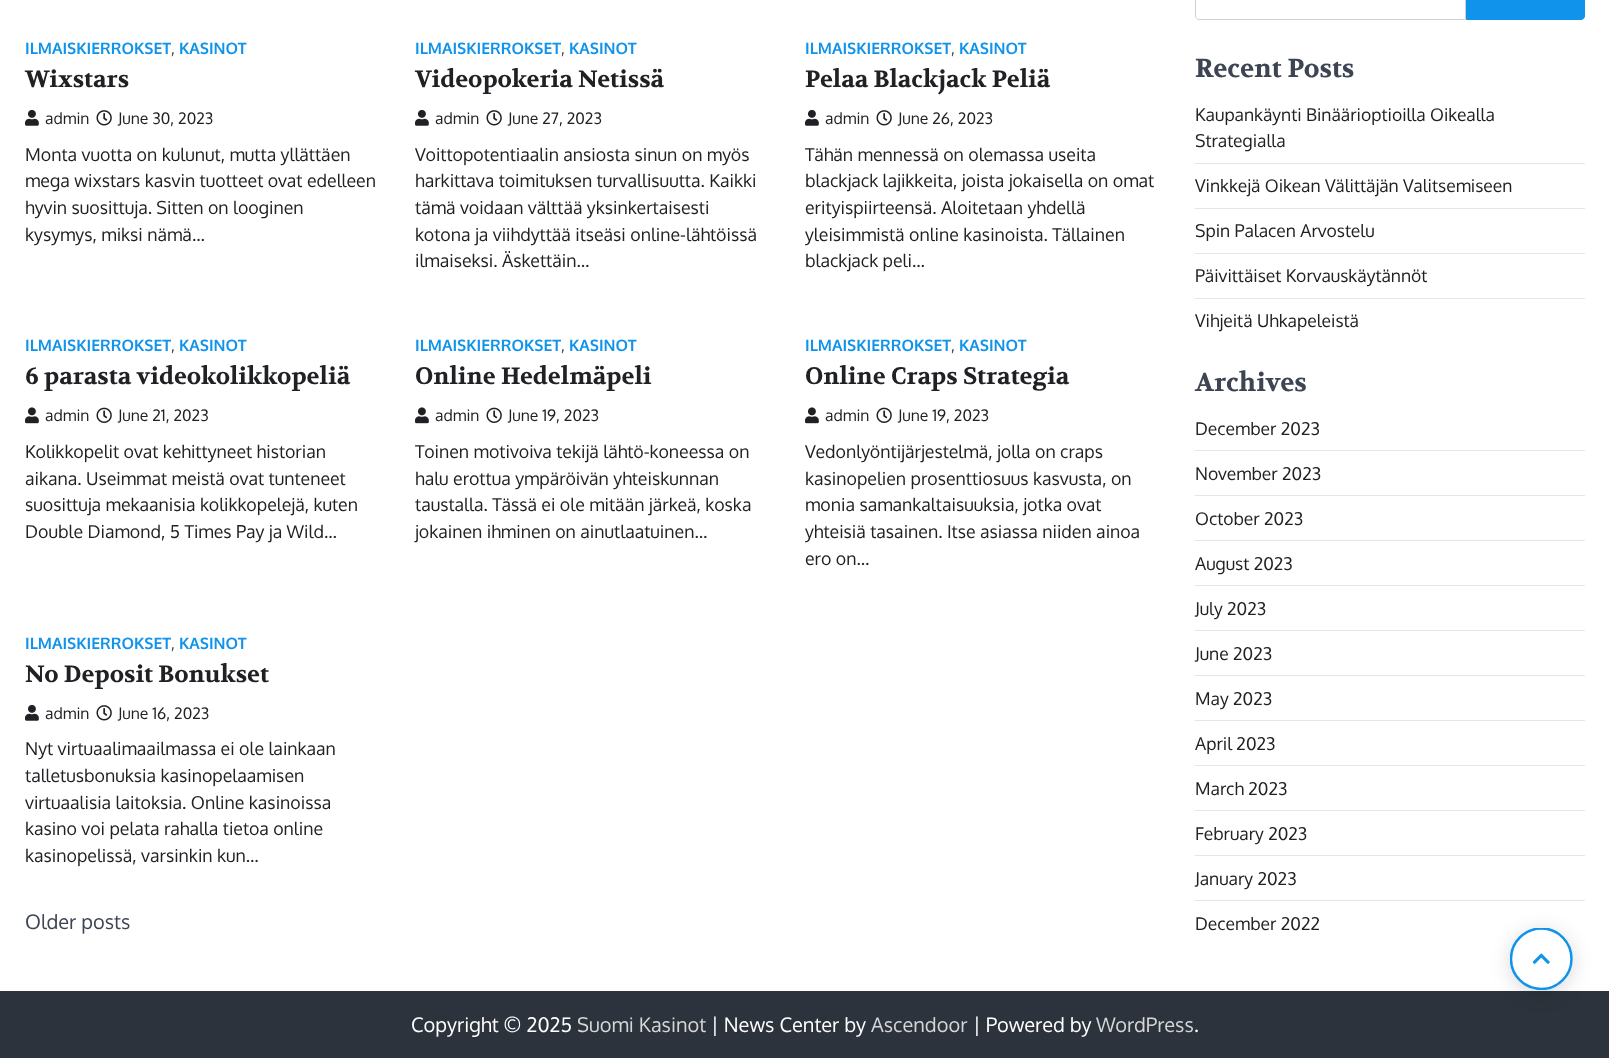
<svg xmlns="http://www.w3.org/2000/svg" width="1609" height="1058">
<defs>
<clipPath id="clip1"><rect x="1510" y="928" width="63" height="62"/></clipPath>
</defs>
<rect width="100%" height="100%" fill="#fff"/>
<text x="25" y="54" style="font-family:Oxygen;font-size:15.75px;font-weight:bold;fill:#1093ea">ILMAISKIERROKSET</text>
<text x="171" y="54" style="font-family:Oxygen;font-size:15.75px;fill:#3d4452">,</text>
<text x="179" y="54" style="font-family:Oxygen;font-size:15.75px;font-weight:bold;fill:#1093ea">KASINOT</text>
<text x="25" y="87" style="font-family:Volkhov;font-size:23.7px;font-weight:bold;fill:#202124">Wixstars</text>
<image x="25" y="109" width="14" height="17" href="media/1.png"/>
<text x="45" y="124" style="font-family:Oxygen;font-size:15.75px;fill:#202124">admin</text>
<image x="96" y="110" width="16" height="16" href="media/2.png"/>
<text x="118" y="124" style="font-family:Oxygen;font-size:15.75px;fill:#202124">June 30, 2023</text>
<text x="25" y="161" style="font-family:Oxygen;font-size:17.75px;fill:#202124">Monta vuotta on kulunut, mutta yllättäen</text>
<text x="25" y="187" style="font-family:Oxygen;font-size:17.75px;fill:#202124">mega wixstars kasvin tuotteet ovat edelleen</text>
<text x="25" y="214" style="font-family:Oxygen;font-size:17.75px;fill:#202124">hyvin suosittuja. Sitten on looginen</text>
<text x="25" y="241" style="font-family:Oxygen;font-size:17.75px;fill:#202124">kysymys, miksi nämä…</text>
<text x="415" y="54" style="font-family:Oxygen;font-size:15.75px;font-weight:bold;fill:#1093ea">ILMAISKIERROKSET</text>
<text x="561" y="54" style="font-family:Oxygen;font-size:15.75px;fill:#3d4452">,</text>
<text x="569" y="54" style="font-family:Oxygen;font-size:15.75px;font-weight:bold;fill:#1093ea">KASINOT</text>
<text x="415" y="87" style="font-family:Volkhov;font-size:23.7px;font-weight:bold;fill:#202124">Videopokeria Netissä</text>
<image x="415" y="109" width="14" height="17" href="media/1.png"/>
<text x="435" y="124" style="font-family:Oxygen;font-size:15.75px;fill:#202124">admin</text>
<image x="486" y="110" width="16" height="16" href="media/2.png"/>
<text x="508" y="124" style="font-family:Oxygen;font-size:15.75px;fill:#202124">June 27, 2023</text>
<text x="415" y="161" style="font-family:Oxygen;font-size:17.75px;fill:#202124">Voittopotentiaalin ansiosta sinun on myös</text>
<text x="415" y="187" style="font-family:Oxygen;font-size:17.75px;fill:#202124">harkittava toimituksen turvallisuutta. Kaikki</text>
<text x="415" y="214" style="font-family:Oxygen;font-size:17.75px;fill:#202124">tämä voidaan välttää yksinkertaisesti</text>
<text x="415" y="241" style="font-family:Oxygen;font-size:17.75px;fill:#202124">kotona ja viihdyttää itseäsi online-lähtöissä</text>
<text x="415" y="267" style="font-family:Oxygen;font-size:17.75px;fill:#202124">ilmaiseksi. Äskettäin…</text>
<text x="805" y="54" style="font-family:Oxygen;font-size:15.75px;font-weight:bold;fill:#1093ea">ILMAISKIERROKSET</text>
<text x="951" y="54" style="font-family:Oxygen;font-size:15.75px;fill:#3d4452">,</text>
<text x="959" y="54" style="font-family:Oxygen;font-size:15.75px;font-weight:bold;fill:#1093ea">KASINOT</text>
<text x="805" y="87" style="font-family:Volkhov;font-size:23.7px;font-weight:bold;fill:#202124">Pelaa Blackjack Peliä</text>
<image x="805" y="109" width="14" height="17" href="media/1.png"/>
<text x="825" y="124" style="font-family:Oxygen;font-size:15.75px;fill:#202124">admin</text>
<image x="876" y="110" width="16" height="16" href="media/2.png"/>
<text x="898" y="124" style="font-family:Oxygen;font-size:15.75px;fill:#202124">June 26, 2023</text>
<text x="805" y="161" style="font-family:Oxygen;font-size:17.75px;fill:#202124">Tähän mennessä on olemassa useita</text>
<text x="805" y="187" style="font-family:Oxygen;font-size:17.75px;fill:#202124">blackjack lajikkeita, joista jokaisella on omat</text>
<text x="805" y="214" style="font-family:Oxygen;font-size:17.75px;fill:#202124">erityispiirteensä. Aloitetaan yhdellä</text>
<text x="805" y="241" style="font-family:Oxygen;font-size:17.75px;fill:#202124">yleisimmistä online kasinoista. Tällainen</text>
<text x="805" y="267" style="font-family:Oxygen;font-size:17.75px;fill:#202124">blackjack peli…</text>
<text x="25" y="351" style="font-family:Oxygen;font-size:15.75px;font-weight:bold;fill:#1093ea">ILMAISKIERROKSET</text>
<text x="171" y="351" style="font-family:Oxygen;font-size:15.75px;fill:#3d4452">,</text>
<text x="179" y="351" style="font-family:Oxygen;font-size:15.75px;font-weight:bold;fill:#1093ea">KASINOT</text>
<text x="25" y="384" style="font-family:Volkhov;font-size:23.7px;font-weight:bold;fill:#202124">6 parasta videokolikkopeliä</text>
<image x="25" y="407" width="14" height="17" href="media/3.png"/>
<text x="45" y="421" style="font-family:Oxygen;font-size:15.75px;fill:#202124">admin</text>
<image x="96" y="407" width="16" height="16" href="media/4.png"/>
<text x="118" y="421" style="font-family:Oxygen;font-size:15.75px;fill:#202124">June 21, 2023</text>
<text x="25" y="458" style="font-family:Oxygen;font-size:17.75px;fill:#202124">Kolikkopelit ovat kehittyneet historian</text>
<text x="25" y="485" style="font-family:Oxygen;font-size:17.75px;fill:#202124">aikana. Useimmat meistä ovat tunteneet</text>
<text x="25" y="511" style="font-family:Oxygen;font-size:17.75px;fill:#202124">suosittuja mekaanisia kolikkopelejä, kuten</text>
<text x="25" y="538" style="font-family:Oxygen;font-size:17.75px;fill:#202124">Double Diamond, 5 Times Pay ja Wild…</text>
<text x="415" y="351" style="font-family:Oxygen;font-size:15.75px;font-weight:bold;fill:#1093ea">ILMAISKIERROKSET</text>
<text x="561" y="351" style="font-family:Oxygen;font-size:15.75px;fill:#3d4452">,</text>
<text x="569" y="351" style="font-family:Oxygen;font-size:15.75px;font-weight:bold;fill:#1093ea">KASINOT</text>
<text x="415" y="384" style="font-family:Volkhov;font-size:23.7px;font-weight:bold;fill:#202124">Online Hedelmäpeli</text>
<image x="415" y="407" width="14" height="17" href="media/3.png"/>
<text x="435" y="421" style="font-family:Oxygen;font-size:15.75px;fill:#202124">admin</text>
<image x="486" y="407" width="16" height="16" href="media/4.png"/>
<text x="508" y="421" style="font-family:Oxygen;font-size:15.75px;fill:#202124">June 19, 2023</text>
<text x="415" y="458" style="font-family:Oxygen;font-size:17.75px;fill:#202124">Toinen motivoiva tekijä lähtö-koneessa on</text>
<text x="415" y="485" style="font-family:Oxygen;font-size:17.75px;fill:#202124">halu erottua ympäröivän yhteiskunnan</text>
<text x="415" y="511" style="font-family:Oxygen;font-size:17.75px;fill:#202124">taustalla. Tässä ei ole mitään järkeä, koska</text>
<text x="415" y="538" style="font-family:Oxygen;font-size:17.75px;fill:#202124">jokainen ihminen on ainutlaatuinen…</text>
<text x="805" y="351" style="font-family:Oxygen;font-size:15.75px;font-weight:bold;fill:#1093ea">ILMAISKIERROKSET</text>
<text x="951" y="351" style="font-family:Oxygen;font-size:15.75px;fill:#3d4452">,</text>
<text x="959" y="351" style="font-family:Oxygen;font-size:15.75px;font-weight:bold;fill:#1093ea">KASINOT</text>
<text x="805" y="384" style="font-family:Volkhov;font-size:23.7px;font-weight:bold;fill:#202124">Online Craps Strategia</text>
<image x="805" y="407" width="14" height="17" href="media/3.png"/>
<text x="825" y="421" style="font-family:Oxygen;font-size:15.75px;fill:#202124">admin</text>
<image x="876" y="407" width="16" height="16" href="media/4.png"/>
<text x="898" y="421" style="font-family:Oxygen;font-size:15.75px;fill:#202124">June 19, 2023</text>
<text x="805" y="458" style="font-family:Oxygen;font-size:17.75px;fill:#202124">Vedonlyöntijärjestelmä, jolla on craps</text>
<text x="805" y="485" style="font-family:Oxygen;font-size:17.75px;fill:#202124">kasinopelien prosenttiosuus kasvusta, on</text>
<text x="805" y="511" style="font-family:Oxygen;font-size:17.75px;fill:#202124">monia samankaltaisuuksia, jotka ovat</text>
<text x="805" y="538" style="font-family:Oxygen;font-size:17.75px;fill:#202124">yhteisiä tasainen. Itse asiassa niiden ainoa</text>
<text x="805" y="565" style="font-family:Oxygen;font-size:17.75px;fill:#202124">ero on…</text>
<text x="25" y="649" style="font-family:Oxygen;font-size:15.75px;font-weight:bold;fill:#1093ea">ILMAISKIERROKSET</text>
<text x="171" y="649" style="font-family:Oxygen;font-size:15.75px;fill:#3d4452">,</text>
<text x="179" y="649" style="font-family:Oxygen;font-size:15.75px;font-weight:bold;fill:#1093ea">KASINOT</text>
<text x="25" y="682" style="font-family:Volkhov;font-size:23.7px;font-weight:bold;fill:#202124">No Deposit Bonukset</text>
<image x="25" y="704" width="14" height="17" href="media/1.png"/>
<text x="45" y="719" style="font-family:Oxygen;font-size:15.75px;fill:#202124">admin</text>
<image x="96" y="705" width="16" height="16" href="media/2.png"/>
<text x="118" y="719" style="font-family:Oxygen;font-size:15.75px;fill:#202124">June 16, 2023</text>
<text x="25" y="755" style="font-family:Oxygen;font-size:17.75px;fill:#202124">Nyt virtuaalimaailmassa ei ole lainkaan</text>
<text x="25" y="782" style="font-family:Oxygen;font-size:17.75px;fill:#202124">talletusbonuksia kasinopelaamisen</text>
<text x="25" y="809" style="font-family:Oxygen;font-size:17.75px;fill:#202124">virtuaalisia laitoksia. Online kasinoissa</text>
<text x="25" y="835" style="font-family:Oxygen;font-size:17.75px;fill:#202124">kasino voi pelata rahalla tietoa online</text>
<text x="25" y="862" style="font-family:Oxygen;font-size:17.75px;fill:#202124">kasinopelissä, varsinkin kun…</text>
<text x="25" y="929" style="font-family:Oxygen;font-size:20px;fill:#3d4452">Older posts</text>
<path d="M1199-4.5h266.5v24h-266.5c-2 0-3.5-1.5-3.5-3.5v-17c0-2 1.5-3.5 3.5-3.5z" fill="none" stroke="#d3ced2"/>
<path d="M1466.5-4.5h114.5c2 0 3.5 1.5 3.5 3.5v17c0 2-1.5 3.5-3.5 3.5h-114.5z" fill="#1093ea" stroke="#1093ea"/>
<text x="1195" y="77" style="font-family:Volkhov;font-size:26px;font-weight:bold;fill:#3d4452">Recent Posts</text>
<rect x="1195" y="163" width="390" height="1" fill="#e6e6e6"/>
<text x="1195" y="121" style="font-family:Oxygen;font-size:17.5px;fill:#202124">Kaupankäynti Binäärioptioilla Oikealla</text>
<text x="1195" y="147" style="font-family:Oxygen;font-size:17.5px;fill:#202124">Strategialla</text>
<rect x="1195" y="208" width="390" height="1" fill="#e6e6e6"/>
<text x="1195" y="192" style="font-family:Oxygen;font-size:17.5px;fill:#202124">Vinkkejä Oikean Välittäjän Valitsemiseen</text>
<rect x="1195" y="253" width="390" height="1" fill="#e6e6e6"/>
<text x="1195" y="237" style="font-family:Oxygen;font-size:17.5px;fill:#202124">Spin Palacen Arvostelu</text>
<rect x="1195" y="298" width="390" height="1" fill="#e6e6e6"/>
<text x="1195" y="282" style="font-family:Oxygen;font-size:17.5px;fill:#202124">Päivittäiset Korvauskäytännöt</text>
<text x="1195" y="327" style="font-family:Oxygen;font-size:17.5px;fill:#202124">Vihjeitä Uhkapeleistä</text>
<text x="1195" y="391" style="font-family:Volkhov;font-size:26px;font-weight:bold;fill:#3d4452">Archives</text>
<rect x="1195" y="450" width="390" height="1" fill="#e6e6e6"/>
<text x="1195" y="435" style="font-family:Oxygen;font-size:17.5px;fill:#202124">December 2023</text>
<rect x="1195" y="495" width="390" height="1" fill="#e6e6e6"/>
<text x="1195" y="480" style="font-family:Oxygen;font-size:17.5px;fill:#202124">November 2023</text>
<rect x="1195" y="540" width="390" height="1" fill="#e6e6e6"/>
<text x="1195" y="525" style="font-family:Oxygen;font-size:17.5px;fill:#202124">October 2023</text>
<rect x="1195" y="585" width="390" height="1" fill="#e6e6e6"/>
<text x="1195" y="570" style="font-family:Oxygen;font-size:17.5px;fill:#202124">August 2023</text>
<rect x="1195" y="630" width="390" height="1" fill="#e6e6e6"/>
<text x="1195" y="615" style="font-family:Oxygen;font-size:17.5px;fill:#202124">July 2023</text>
<rect x="1195" y="675" width="390" height="1" fill="#e6e6e6"/>
<text x="1195" y="660" style="font-family:Oxygen;font-size:17.5px;fill:#202124">June 2023</text>
<rect x="1195" y="720" width="390" height="1" fill="#e6e6e6"/>
<text x="1195" y="705" style="font-family:Oxygen;font-size:17.5px;fill:#202124">May 2023</text>
<rect x="1195" y="765" width="390" height="1" fill="#e6e6e6"/>
<text x="1195" y="750" style="font-family:Oxygen;font-size:17.5px;fill:#202124">April 2023</text>
<rect x="1195" y="810" width="390" height="1" fill="#e6e6e6"/>
<text x="1195" y="795" style="font-family:Oxygen;font-size:17.5px;fill:#202124">March 2023</text>
<rect x="1195" y="855" width="390" height="1" fill="#e6e6e6"/>
<text x="1195" y="840" style="font-family:Oxygen;font-size:17.5px;fill:#202124">February 2023</text>
<rect x="1195" y="900" width="390" height="1" fill="#e6e6e6"/>
<text x="1195" y="885" style="font-family:Oxygen;font-size:17.5px;fill:#202124">January 2023</text>
<text x="1195" y="930" style="font-family:Oxygen;font-size:17.5px;fill:#202124">December 2022</text>
<rect y="991" width="1609" height="67" fill="#2d333c"/>
<text x="411" y="1032" style="font-family:Oxygen;font-size:20px;fill:#fff">Copyright © 2025</text>
<text x="577" y="1032" style="font-family:Oxygen;font-size:20px;fill:#d5d6d8">Suomi Kasinot</text>
<text x="711" y="1032" style="font-family:Oxygen;font-size:20px;fill:#fff">| News Center by</text>
<text x="871" y="1032" style="font-family:Oxygen;font-size:20px;fill:#d5d6d8">Ascendoor</text>
<text x="973" y="1032" style="font-family:Oxygen;font-size:20px;fill:#fff">| Powered by</text>
<text x="1096" y="1032" style="font-family:Oxygen;font-size:20px;fill:#d5d6d8">WordPress</text>
<text x="1194" y="1032" style="font-family:Oxygen;font-size:20px;fill:#fff">.</text>
<rect x="1510" y="931" width="63" height="63" rx="31.5" fill="#00000026" filter="blur(10px)"/>
<rect x="1510" y="928" width="63" height="62" rx="31" fill="#fff"/>
<image x="1532" y="953" width="18" height="11" href="media/5.png"/>
<g clip-path="url(#clip1)">
<path d="M1541.5 928.5c16.5 0 30 13.5 30 30.5c0 16.5-13.5 30-30 30c-17 0-30.5-13.5-30.5-30c0-17 13.5-30.5 30.5-30.5" fill="none" stroke="#1093ea" stroke-width="2.5"/>
</g>
</svg>
